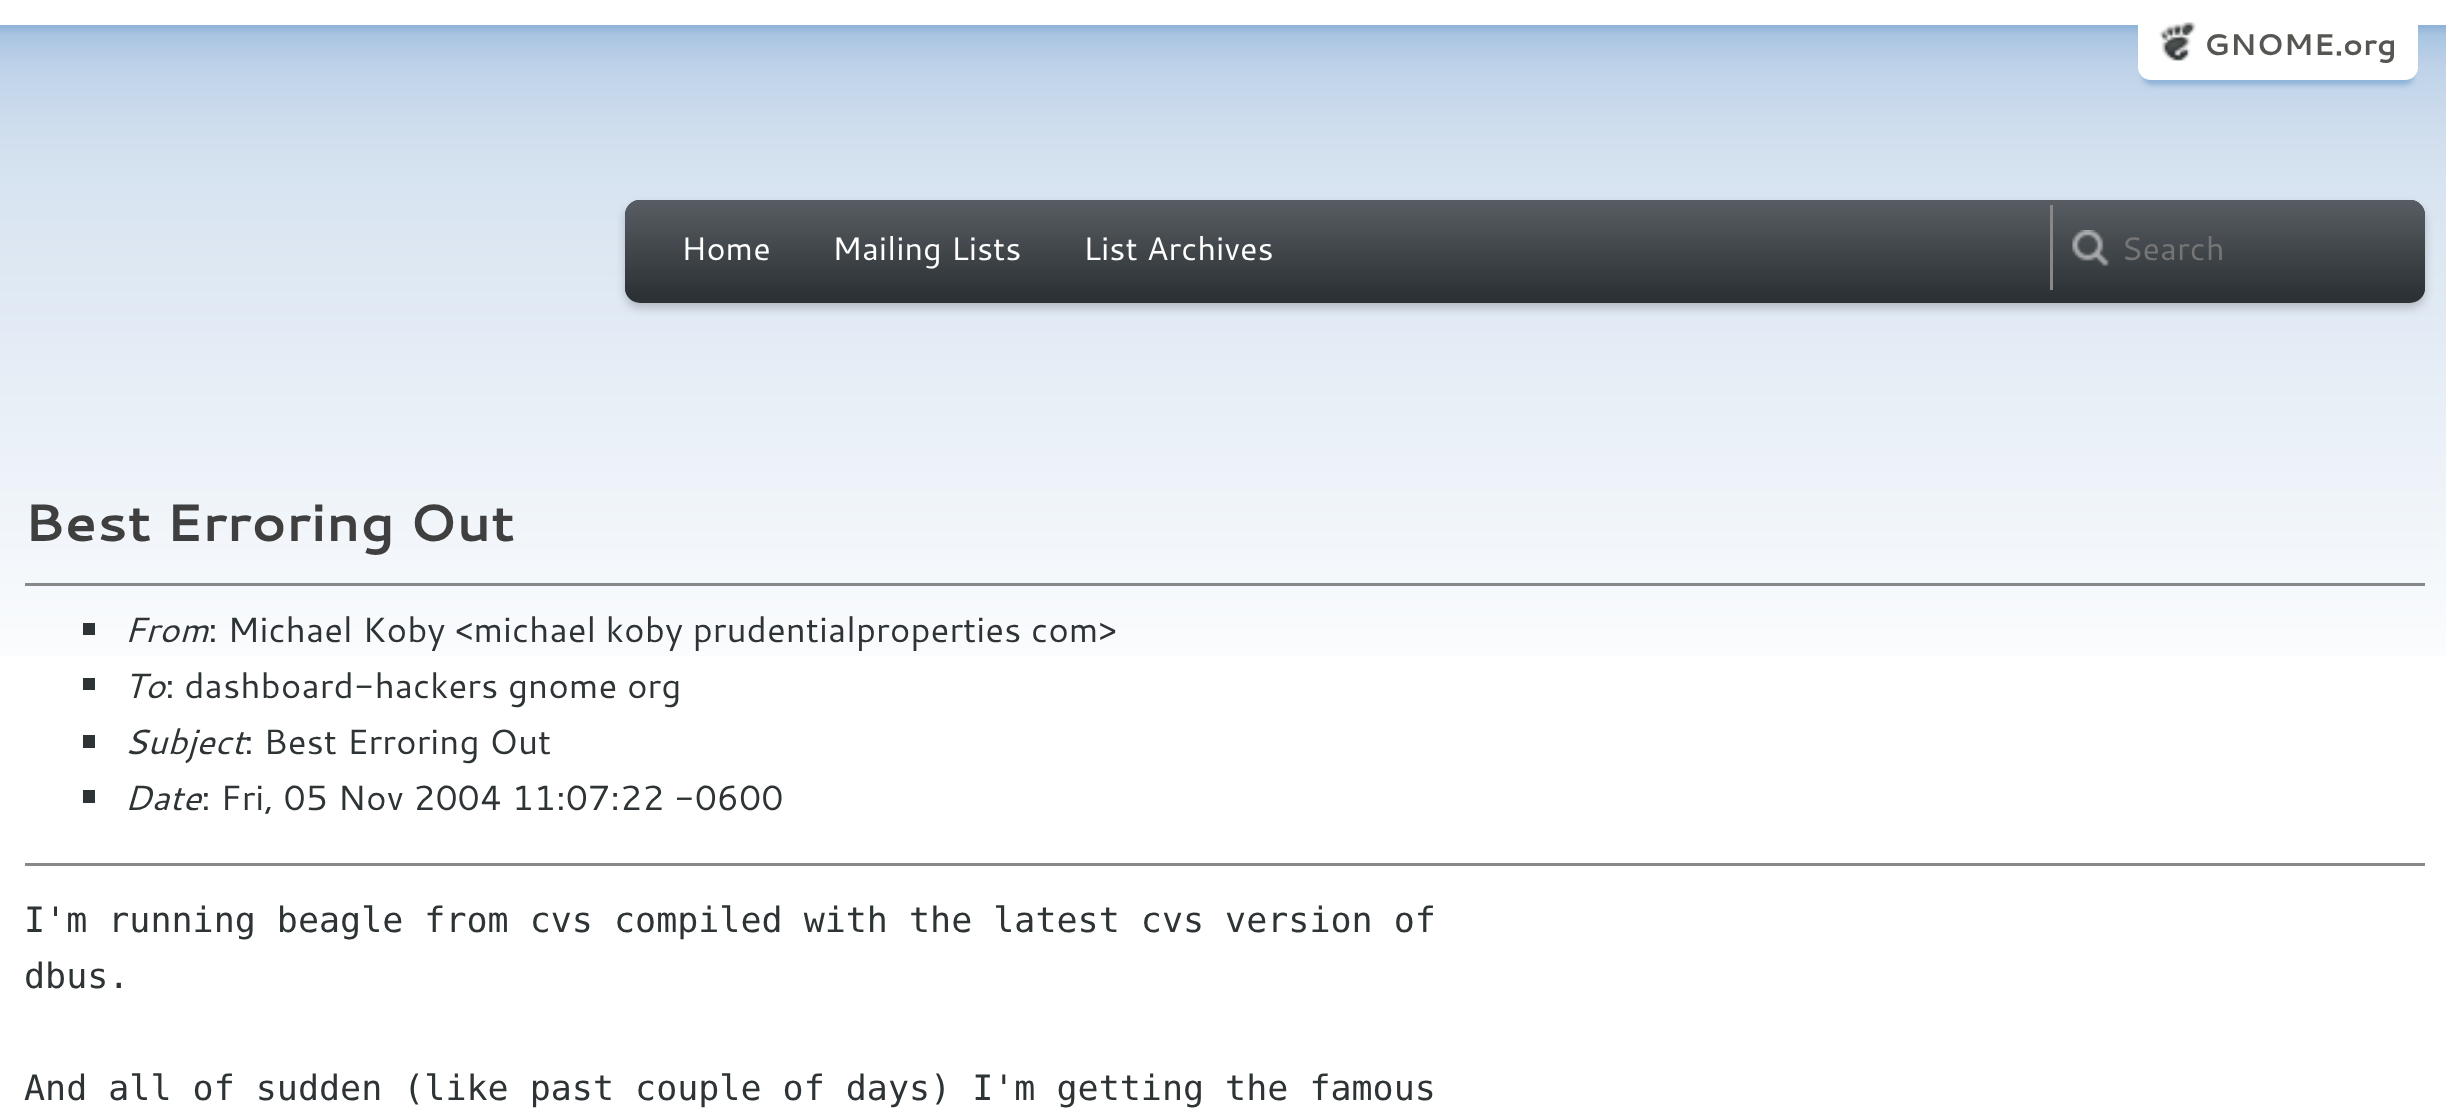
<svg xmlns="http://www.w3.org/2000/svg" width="2446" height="1108">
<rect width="100%" height="100%" fill="#fff"/>
<image x="0" y="25" width="2446" height="631" href="media/1.png"/>
<rect x="2143" y="25" width="270" height="60" rx="8" fill="#8fb3d9" filter="blur(2.5px)"/>
<rect x="2138" y="10" width="280" height="70" rx="13" fill="#fff"/>
<image x="2159" y="22" width="37" height="39" href="media/2.png"/>
<text x="2204" y="55" style="font-family:Cantarell;font-size:30px;font-weight:bold;fill:#555753">GNOME.org</text>
<rect x="625" y="205" width="1800" height="103" rx="15" fill="#00000033" filter="blur(5px)"/>
<rect x="625" y="200" width="1800" height="103" rx="15" fill="#2e3436"/>
<image x="625" y="200" width="1800" height="100" href="media/3.png"/>
<text x="681" y="260" style="font-family:Cantarell;font-size:32.5px;fill:#fff">Home</text>
<text x="832" y="260" style="font-family:Cantarell;font-size:32.5px;fill:#fff">Mailing Lists</text>
<text x="1083" y="260" style="font-family:Cantarell;font-size:32.5px;fill:#fff">List Archives</text>
<image x="2072" y="230" width="38" height="37" href="media/4.png"/>
<rect x="2050" y="205" width="3" height="85" fill="#888"/>
<text x="2121" y="260" style="font-family:Cantarell;font-size:32.5px;fill:#757575">Search</text>
<text x="24" y="541" style="font-family:Cantarell;font-size:52.5px;font-weight:bold;fill:#3f3f3f">Best Erroring Out</text>
<rect x="25" y="583" width="2400" height="3" fill="#888"/>
<rect x="83" y="623" width="12" height="12" fill="#2e3436"/>
<text x="124" y="642" style="font-family:Cantarell;font-size:35px;font-style:italic;fill:#2e3436">From</text>
<text x="208" y="642" style="font-family:Cantarell;font-size:35px;fill:#2e3436">: Michael Koby &lt;michael koby prudentialproperties com&gt;</text>
<rect x="83" y="678" width="12" height="12" fill="#2e3436"/>
<text x="124" y="698" style="font-family:Cantarell;font-size:35px;font-style:italic;fill:#2e3436">To</text>
<text x="165" y="698" style="font-family:Cantarell;font-size:35px;fill:#2e3436">: dashboard-hackers gnome org</text>
<rect x="83" y="735" width="12" height="13" fill="#2e3436"/>
<text x="124" y="754" style="font-family:Cantarell;font-size:35px;font-style:italic;fill:#2e3436">Subject</text>
<text x="244" y="754" style="font-family:Cantarell;font-size:35px;fill:#2e3436">: Best Erroring Out</text>
<rect x="83" y="790" width="12" height="13" fill="#2e3436"/>
<text x="124" y="810" style="font-family:Cantarell;font-size:35px;font-style:italic;fill:#2e3436">Date</text>
<text x="201" y="810" style="font-family:Cantarell;font-size:35px;fill:#2e3436">: Fri, 05 Nov 2004 11:07:22 -0600</text>
<rect x="25" y="863" width="2400" height="3" fill="#888"/>
<text x="24" y="932" style="font-family:DejaVu Sans Mono;font-size:35px;fill:#2e3436">I'm running beagle from cvs compiled with the latest cvs version of</text>
<text x="24" y="988" style="font-family:DejaVu Sans Mono;font-size:35px;fill:#2e3436">dbus.</text>
<text x="24" y="1100" style="font-family:DejaVu Sans Mono;font-size:35px;fill:#2e3436">And all of sudden (like past couple of days) I'm getting the famous</text>
</svg>
